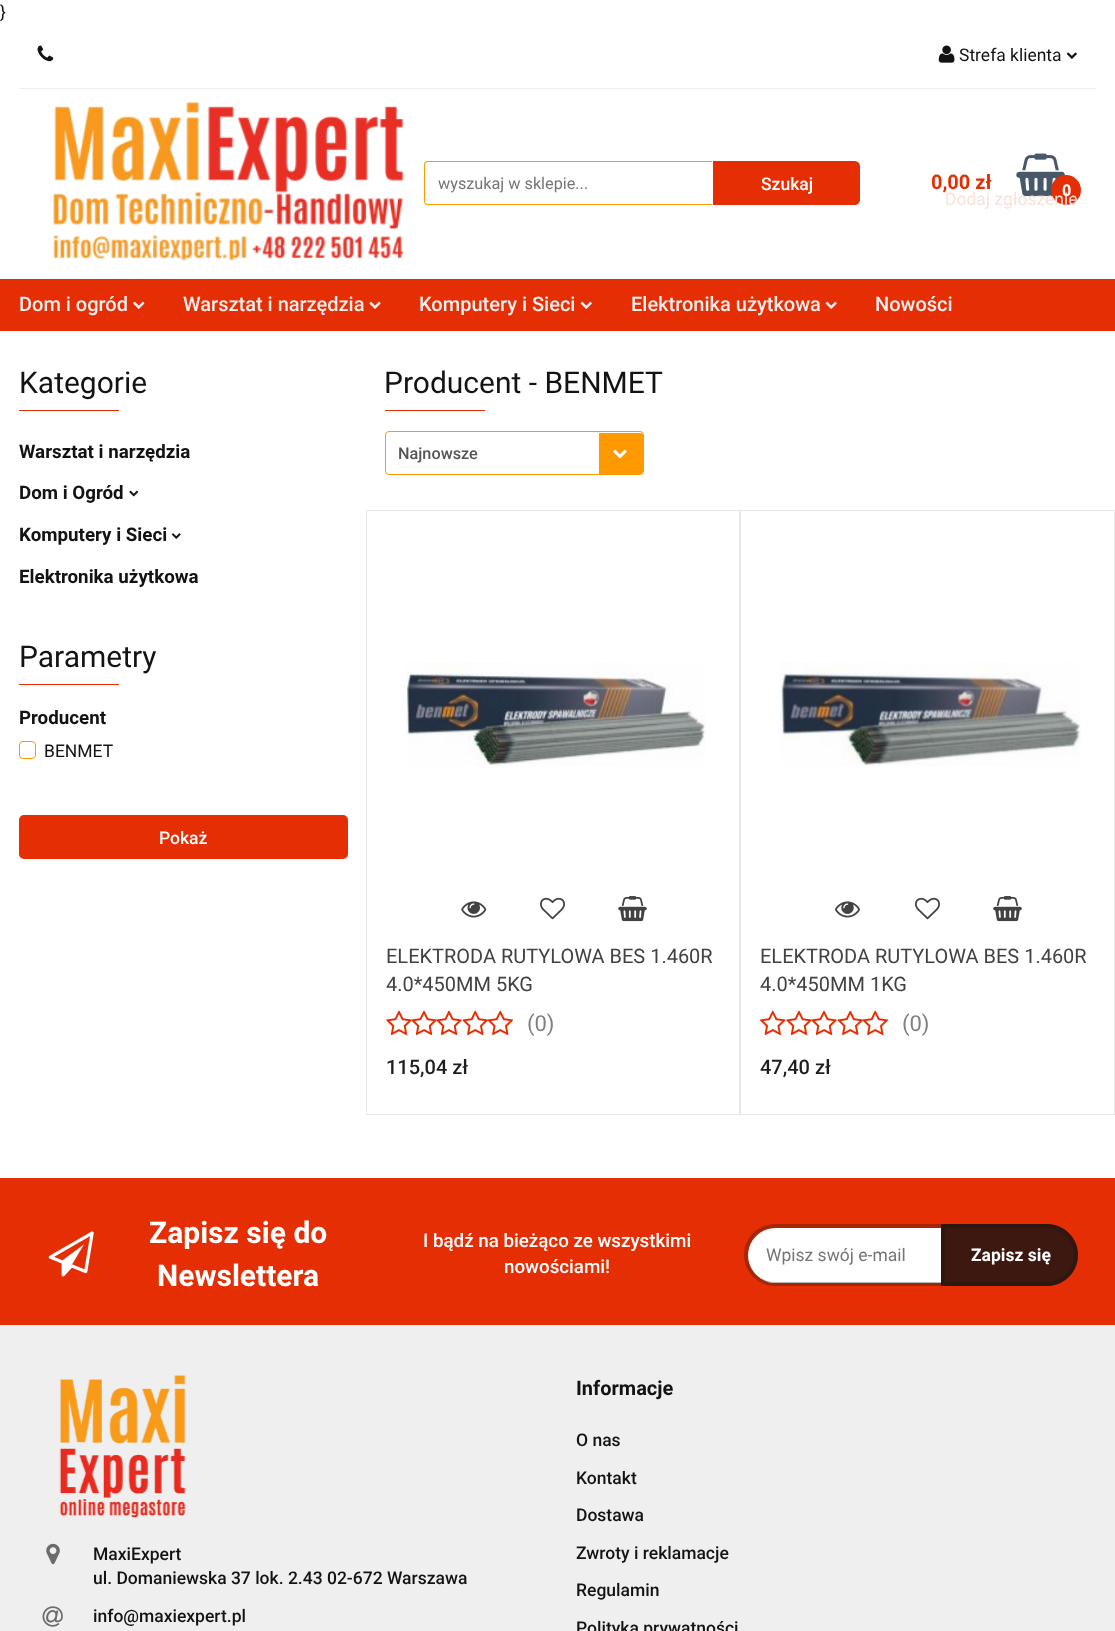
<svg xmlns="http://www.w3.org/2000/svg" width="1115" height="1631">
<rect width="100%" height="100%" fill="#fff"/>
<text x="0" y="18" style="font-family:Roboto;font-size:17.5px;fill:#131313">}</text>
<rect x="19" y="88" width="1077" height="1" fill="#efefef"/>
<image x="37" y="45" width="17" height="17" href="media/1.png"/>
<image x="938" y="45" width="17" height="18" href="media/2.png"/>
<text x="959" y="61" style="font-family:Roboto;font-size:17.5px;fill:#131313">Strefa klienta</text>
<image x="1066" y="52" width="11" height="7" href="media/3.png"/>
<image x="1016" y="153" width="49" height="44" href="media/5.png"/>
<circle cx="1066" cy="190" r="15" fill="#e62e04"/>
<text x="1062" y="196" style="font-family:Roboto;font-size:16.25px;font-weight:bold;fill:#fff">0</text>
<text x="945" y="205" style="font-family:Roboto;font-size:17.5px;fill:#f8e1db">Dodaj zgłoszenie</text>
<image x="53" y="102" width="351" height="159" href="media/4.png"/>
<path d="M428 161h284v44h-284c-3 0-4-2-4-4v-36c0-2 1-4 4-4zm0 1h284v42h-284c-2 0-3-1-3-3v-36c0-1 1-3 3-3z" fill="#f90" fill-rule="evenodd"/>
<text x="438" y="189" style="font-family:Roboto;font-size:16.25px;fill:#757575">wyszukaj w sklepie...</text>
<path d="M715 163h140c1.5 0 3 1.5 3 3v34c0 1.5-1.5 3-3 3h-140z" fill="#e62e04" stroke="#e62e04" stroke-width="4"/>
<text x="761" y="190" style="font-family:Roboto;font-size:17.5px;font-weight:500;fill:#fff">Szukaj</text>
<text x="931" y="189" style="font-family:Roboto;font-size:20px;font-weight:bold;fill:#e62e04">0,00 zł</text>
<rect y="279" width="1115" height="52" fill="#e62e04"/>
<text x="19" y="311" style="font-family:Roboto;font-size:20px;font-weight:500;fill:#efefef">Dom i ogród</text>
<image x="133" y="301" width="12" height="8" href="media/6.png"/>
<text x="183" y="311" style="font-family:Roboto;font-size:20px;font-weight:500;fill:#efefef">Warsztat i narzędzia</text>
<image x="369" y="301" width="12" height="8" href="media/7.png"/>
<text x="419" y="311" style="font-family:Roboto;font-size:20px;font-weight:500;fill:#efefef">Komputery i Sieci</text>
<image x="580" y="301" width="12" height="8" href="media/8.png"/>
<text x="631" y="311" style="font-family:Roboto;font-size:20px;font-weight:500;fill:#efefef">Elektronika użytkowa</text>
<image x="825" y="301" width="12" height="8" href="media/8.png"/>
<text x="875" y="311" style="font-family:Roboto;font-size:20px;font-weight:500;fill:#efefef">Nowości</text>
<text x="19" y="393" style="font-family:Roboto;font-size:30px;fill:#131313">Kategorie</text>
<rect x="19" y="410" width="100" height="1" fill="#e62e04"/>
<text x="19" y="458" style="font-family:Roboto;font-size:18.75px;font-weight:bold;fill:#131313">Warsztat i narzędzia</text>
<text x="19" y="499" style="font-family:Roboto;font-size:18.75px;font-weight:bold;fill:#131313">Dom i Ogród</text>
<image x="129" y="490" width="10" height="7" href="media/9.png"/>
<text x="19" y="541" style="font-family:Roboto;font-size:18.75px;font-weight:bold;fill:#131313">Komputery i Sieci</text>
<image x="171" y="533" width="10" height="6" href="media/10.png"/>
<text x="19" y="583" style="font-family:Roboto;font-size:18.75px;font-weight:bold;fill:#131313">Elektronika użytkowa</text>
<text x="19" y="667" style="font-family:Roboto;font-size:30px;fill:#131313">Parametry</text>
<rect x="19" y="684" width="100" height="1" fill="#e62e04"/>
<text x="19" y="724" style="font-family:Roboto;font-size:18.75px;font-weight:bold;fill:#131313">Producent</text>
<rect x="19.5" y="741.5" width="16" height="17" rx="3.5" fill="none" stroke="#f90"/>
<text x="44" y="757" style="font-family:Roboto;font-size:17.5px;fill:#131313">BENMET</text>
<rect x="21" y="817" width="325" height="40" rx="3" fill="#e62e04" stroke="#e62e04" stroke-width="4"/>
<text x="159" y="844" style="font-family:Roboto;font-size:17.5px;font-weight:500;fill:#fff">Pokaż</text>
<text x="384" y="393" style="font-family:Roboto;font-size:30px;fill:#131313">Producent - BENMET</text>
<rect x="385" y="410" width="100" height="1" fill="#e62e04"/>
<rect x="385.5" y="431.5" width="258" height="43" rx="3.5" fill="none" stroke="#f90"/>
<text x="398" y="459" style="font-family:Roboto;font-size:16.25px;font-weight:500;fill:#555">Najnowsze</text>
<path d="M599 433h41.5c1.5 0 2.5 1 2.5 2.5v36c0 1.5-1 2.5-2.5 2.5h-41.5z" fill="#f90"/>
<image x="613" y="449" width="14" height="10" href="media/11.png"/>
<rect x="366.5" y="510.5" width="373" height="604" fill="none" stroke="#e8e8e8"/>
<image x="406" y="662" width="299" height="104" href="media/12.png"/>
<image x="461" y="901" width="26" height="17" href="media/13.png"/>
<image x="540" y="897" width="25" height="23" href="media/14.png"/>
<image x="618" y="896" width="29" height="26" href="media/15.png"/>
<text x="386" y="963" style="font-family:Roboto;font-size:20px;fill:#424242">ELEKTRODA RUTYLOWA BES 1.460R</text>
<text x="386" y="991" style="font-family:Roboto;font-size:20px;fill:#424242">4.0*450MM 5KG</text>
<image x="386" y="1010" width="26" height="25" href="media/16.png"/>
<image x="411" y="1010" width="26" height="25" href="media/17.png"/>
<image x="436" y="1010" width="26" height="25" href="media/17.png"/>
<image x="462" y="1010" width="26" height="25" href="media/18.png"/>
<image x="487" y="1010" width="26" height="25" href="media/19.png"/>
<text x="527" y="1031" style="font-family:Roboto;font-size:22px;fill:#808080">(0)</text>
<text x="386" y="1074" style="font-family:Roboto;font-size:20px;font-weight:500;fill:#1e1e1e">115,04 zł</text>
<rect x="740.5" y="510.5" width="374" height="604" fill="none" stroke="#e8e8e8"/>
<image x="780" y="662" width="301" height="104" href="media/20.png"/>
<image x="835" y="901" width="25" height="17" href="media/21.png"/>
<image x="915" y="897" width="25" height="23" href="media/14.png"/>
<image x="993" y="896" width="29" height="26" href="media/15.png"/>
<text x="760" y="963" style="font-family:Roboto;font-size:20px;fill:#424242">ELEKTRODA RUTYLOWA BES 1.460R</text>
<text x="760" y="991" style="font-family:Roboto;font-size:20px;fill:#424242">4.0*450MM 1KG</text>
<image x="760" y="1010" width="26" height="25" href="media/22.png"/>
<image x="786" y="1010" width="26" height="25" href="media/16.png"/>
<image x="811" y="1010" width="26" height="25" href="media/17.png"/>
<image x="837" y="1010" width="26" height="25" href="media/18.png"/>
<image x="862" y="1010" width="26" height="25" href="media/19.png"/>
<text x="902" y="1031" style="font-family:Roboto;font-size:22px;fill:#808080">(0)</text>
<text x="760" y="1074" style="font-family:Roboto;font-size:20px;font-weight:500;fill:#1e1e1e">47,40 zł</text>
<rect y="1178" width="1115" height="147" fill="#e62e04"/>
<image x="48" y="1231" width="46" height="46" href="media/23.png"/>
<text x="149" y="1243" style="font-family:Roboto;font-size:30px;font-weight:bold;fill:#fff">Zapisz się do</text>
<text x="157" y="1286" style="font-family:Roboto;font-size:30px;font-weight:bold;fill:#fff">Newslettera</text>
<text x="423" y="1247" style="font-family:Roboto;font-size:18.75px;font-weight:500;fill:#fff">I bądź na bieżąco ze wszystkimi</text>
<text x="504" y="1273" style="font-family:Roboto;font-size:18.75px;font-weight:500;fill:#fff">nowościami!</text>
<path d="M775.5 1228h165.5v55h-165.5c-15 0-27.5-12.5-27.5-27.5c0-15 12.5-27.5 27.5-27.5z" fill="#fff"/>
<path d="M775 1224h166v62h-166c-17 0-31-14-31-31c0-17 14-31 31-31zm0 4h166v54h-166c-15 0-27-12-27-27c0-15 12-27 27-27z" fill="#1313134d" fill-rule="evenodd"/>
<text x="766" y="1261" style="font-family:Roboto;font-size:17.5px;fill:#757575">Wpisz swój e-mail</text>
<path d="M941 1224h106c17 0 31 14 31 31c0 17-14 31-31 31h-106z" fill="#3d1810"/>
<path d="M943 1226h104c16 0 29 13 29 29c0 16-13 29-29 29h-104z" fill="none" stroke="#1313134d" stroke-width="4"/>
<text x="971" y="1261" style="font-family:Roboto;font-size:17.5px;font-weight:bold;fill:#fff">Zapisz się</text>
<rect y="1325" width="1115" height="306" fill="#efefef"/>
<image x="59" y="1375" width="127" height="143" href="media/24.png"/>
<image x="46" y="1543" width="14" height="22" href="media/25.png"/>
<text x="93" y="1560" style="font-family:Roboto;font-size:17.5px;font-weight:500;fill:#131313">MaxiExpert</text>
<text x="93" y="1584" style="font-family:Roboto;font-size:17.5px;font-weight:500;fill:#131313">ul. Domaniewska 37 lok. 2.43 02-672 Warszawa</text>
<image x="42" y="1606" width="21" height="21" href="media/26.png"/>
<text x="93" y="1622" style="font-family:Roboto;font-size:17.5px;font-weight:500;fill:#131313">info@maxiexpert.pl</text>
<text x="576" y="1395" style="font-family:Roboto;font-size:20px;font-weight:bold;fill:#131313">Informacje</text>
<text x="576" y="1446" style="font-family:Roboto;font-size:17.5px;font-weight:500;fill:#131313">O nas</text>
<text x="576" y="1484" style="font-family:Roboto;font-size:17.5px;font-weight:500;fill:#131313">Kontakt</text>
<text x="576" y="1521" style="font-family:Roboto;font-size:17.5px;font-weight:500;fill:#131313">Dostawa</text>
<text x="576" y="1559" style="font-family:Roboto;font-size:17.5px;font-weight:500;fill:#131313">Zwroty i reklamacje</text>
<text x="576" y="1596" style="font-family:Roboto;font-size:17.5px;font-weight:500;fill:#131313">Regulamin</text>
<text x="576" y="1634" style="font-family:Roboto;font-size:17.5px;font-weight:500;fill:#131313">Polityka prywatności</text>
</svg>
